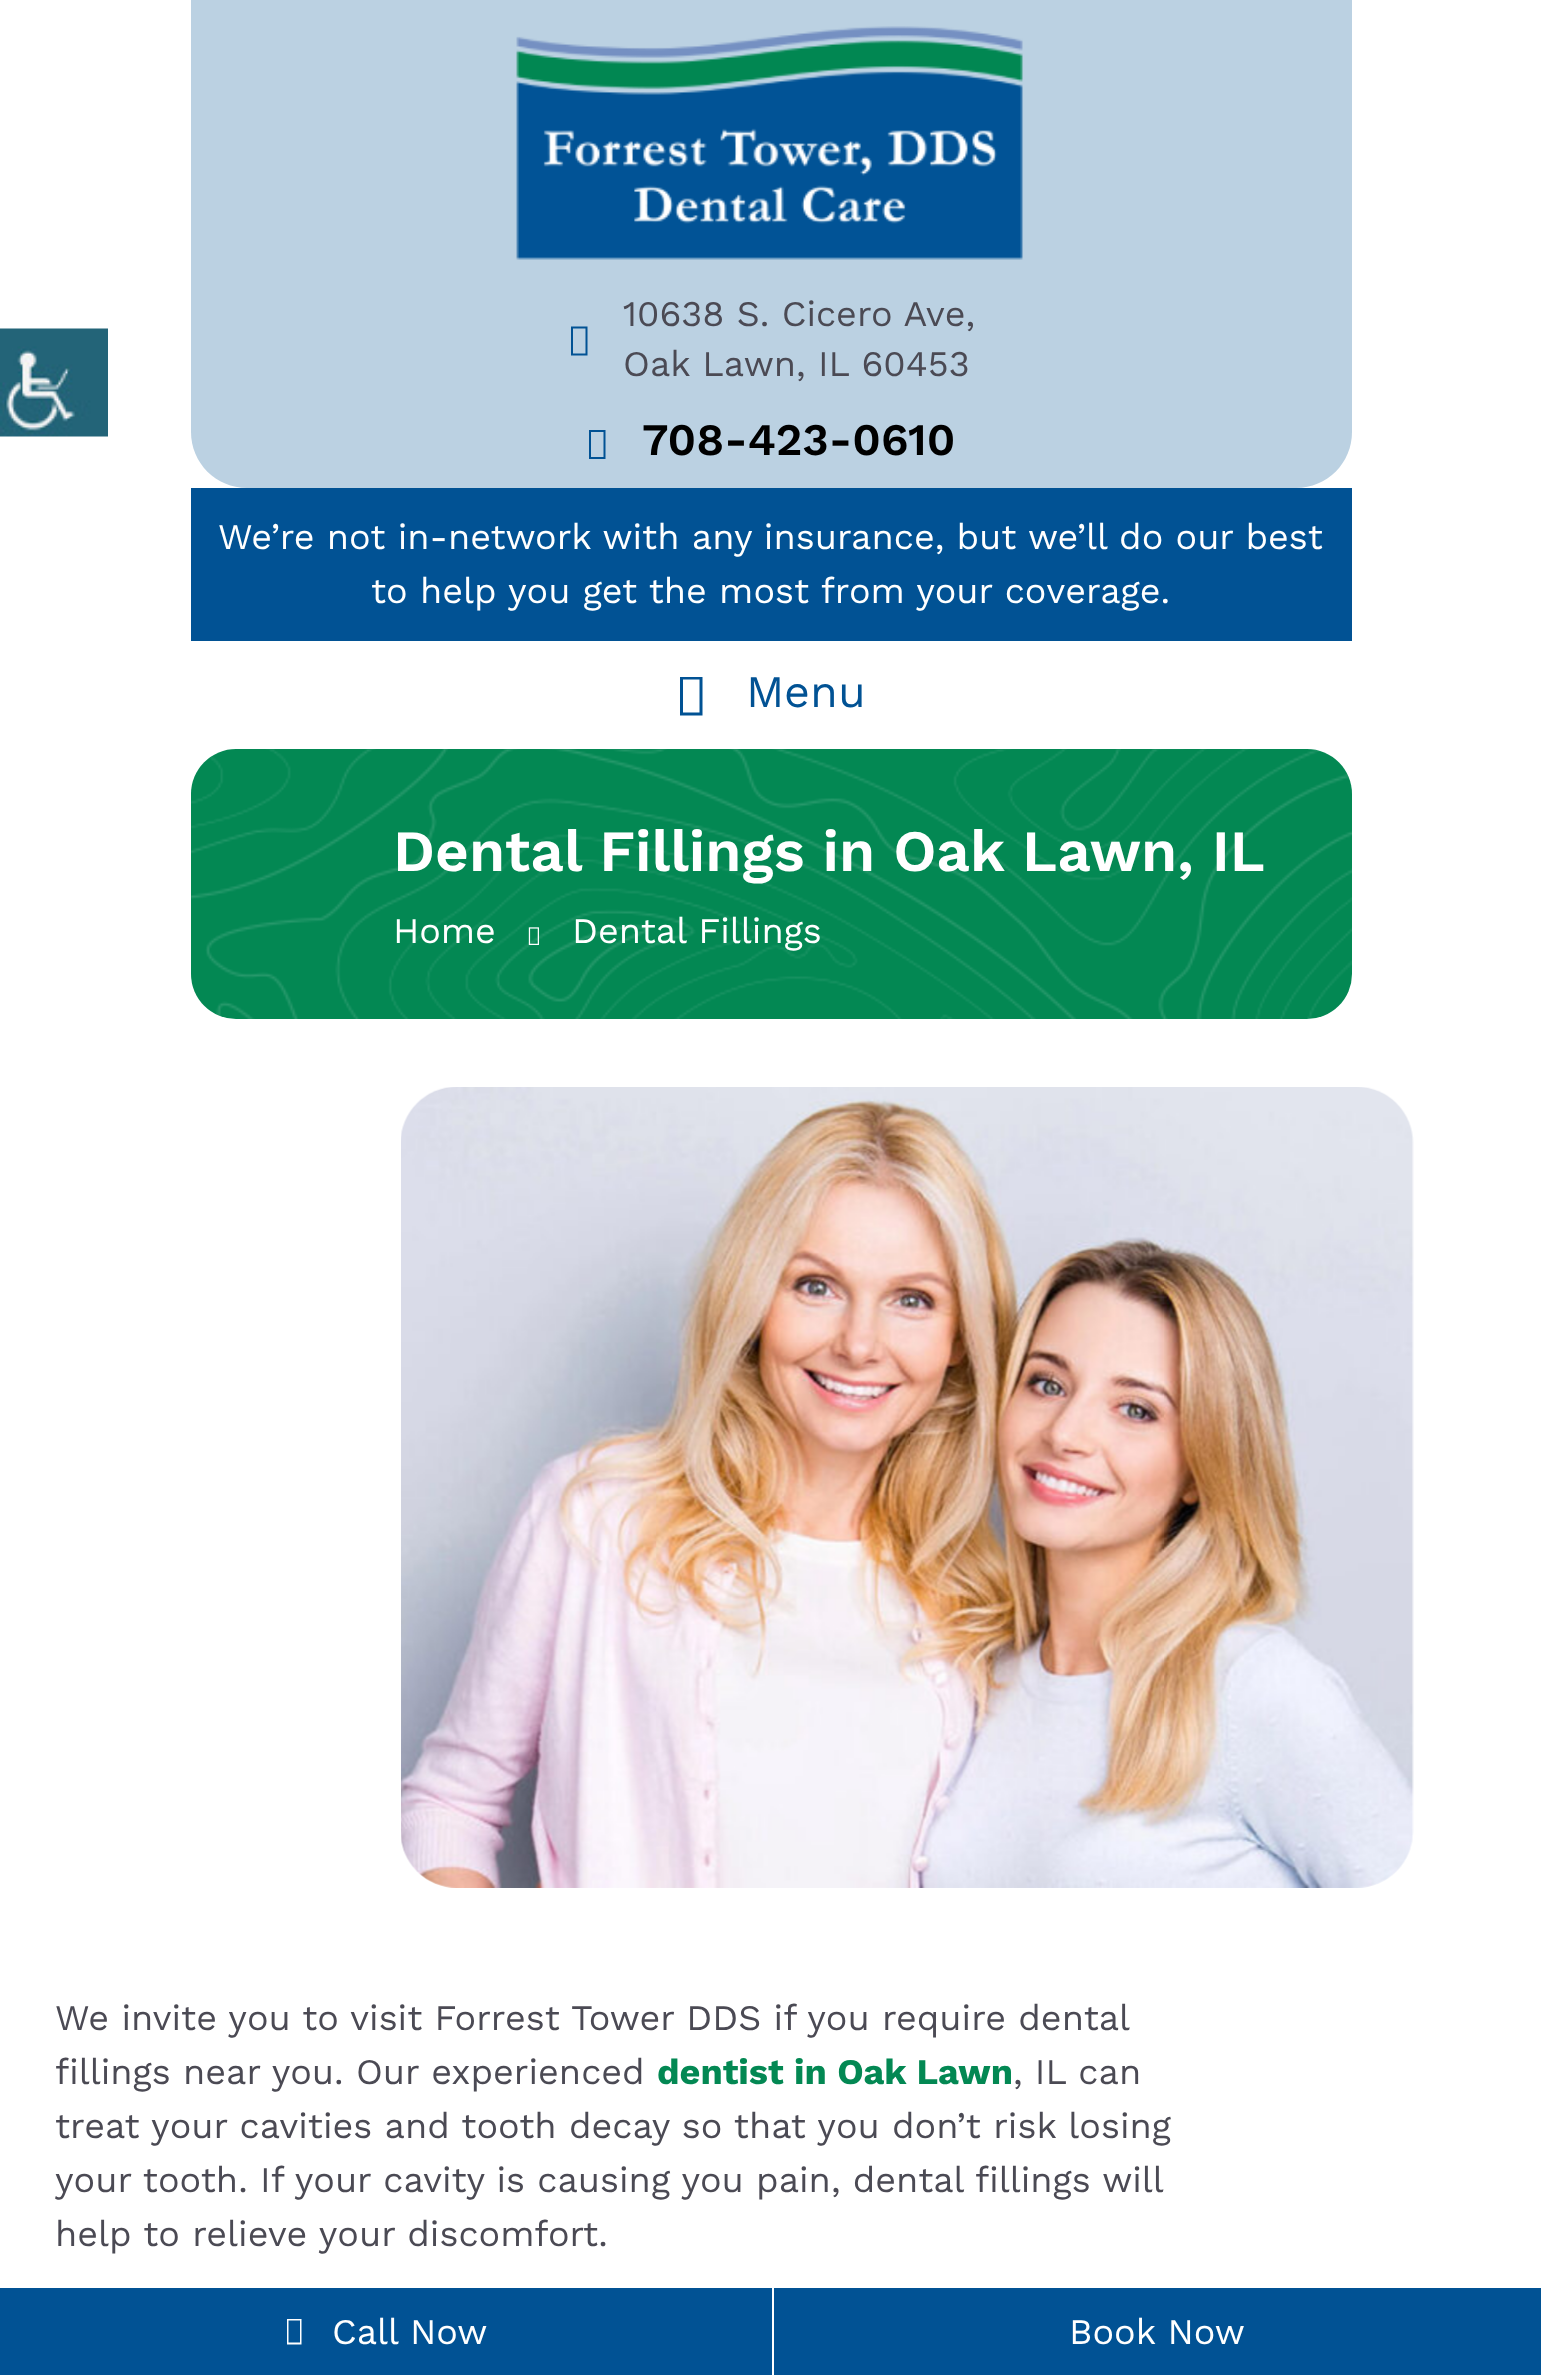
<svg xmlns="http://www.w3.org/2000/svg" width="1541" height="2375">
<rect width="100%" height="100%" fill="#fff"/>
<image x="0" y="328" width="108" height="109" href="media/1.png"/>
<path d="M191 0h1161v432c0 31-25 56-56 56h-1049c-31 0-56-25-56-56z" fill="#bbd1e2"/>
<image x="516" y="26" width="507" height="234" href="media/2.png"/>
<text x="623" y="326" style="font-family:Work Sans;font-size:36px;fill:#4b4a54">10638 S. Cicero Ave,</text>
<path d="M571 355.5v-29h16.5v29zm2-2h12.5v-25h-12.5z" fill="#015294"/>
<text x="623" y="376" style="font-family:Work Sans;font-size:36px;fill:#4b4a54">Oak Lawn, IL 60453</text>
<path d="M589 459v-29h16.5v29zm2-2h12.5v-25h-12.5z" fill="#015294"/>
<text x="642" y="455" style="font-family:Work Sans;font-size:45px;font-weight:600;fill:#000">708-423-0610</text>
<rect x="191" y="488" width="1161" height="153" fill="#015294"/>
<text x="218" y="549" style="font-family:Work Sans;font-size:36px;fill:#fff">We’re not in-network with any insurance, but we’ll do our best</text>
<text x="371" y="603" style="font-family:Work Sans;font-size:36px;fill:#fff">to help you get the most from your coverage.</text>
<path d="M680 715.5v-38.5h22.5v38.5zm3-3h16.5v-33h-16.5z" fill="#015294"/>
<text x="746" y="707" style="font-family:Work Sans;font-size:45px;fill:#015294">Menu</text>
<rect x="191" y="749" width="1161" height="270" rx="45" fill="#038853"/>
<image x="191" y="749" width="1161" height="270" href="media/3.png"/>
<text x="393" y="871" style="font-family:Work Sans;font-size:58.5px;font-weight:600;fill:#fff">Dental Fillings in Oak Lawn, IL</text>
<text x="393" y="943" style="font-family:Work Sans;font-size:36px;fill:#fff">Home</text>
<image x="528" y="927" width="11" height="18" href="media/4.png"/>
<text x="572" y="943" style="font-family:Work Sans;font-size:36px;fill:#fff">Dental Fillings</text>
<image x="401" y="1087" width="1013" height="801" href="media/5.png"/>
<text x="55" y="2030" style="font-family:Work Sans;font-size:36px;fill:#4b4a54">We invite you to visit Forrest Tower DDS if you require dental</text>
<text x="55" y="2084" style="font-family:Work Sans;font-size:36px;fill:#4b4a54">fillings near you. Our experienced</text>
<text x="657" y="2084" style="font-family:Work Sans;font-size:36px;font-weight:bold;fill:#038853">dentist in Oak Lawn</text>
<text x="1013" y="2084" style="font-family:Work Sans;font-size:36px;fill:#4b4a54">, IL can</text>
<text x="55" y="2138" style="font-family:Work Sans;font-size:36px;fill:#4b4a54">treat your cavities and tooth decay so that you don’t risk losing</text>
<text x="55" y="2192" style="font-family:Work Sans;font-size:36px;fill:#4b4a54">your tooth. If your cavity is causing you pain, dental fillings will</text>
<text x="55" y="2246" style="font-family:Work Sans;font-size:36px;fill:#4b4a54">help to relieve your discomfort.</text>
<rect y="2288" width="772" height="87" fill="#015294"/>
<path d="M287 2344.5v-25.5h14.5v25.5zm1.5-2h11.5v-22h-11.5z" fill="#fff"/>
<text x="332" y="2344" style="font-family:Work Sans;font-size:36px;fill:#fff">Call Now</text>
<rect x="774" y="2288" width="767" height="87" fill="#015294"/>
<text x="1069" y="2344" style="font-family:Work Sans;font-size:36px;fill:#fff">Book Now</text>
</svg>
